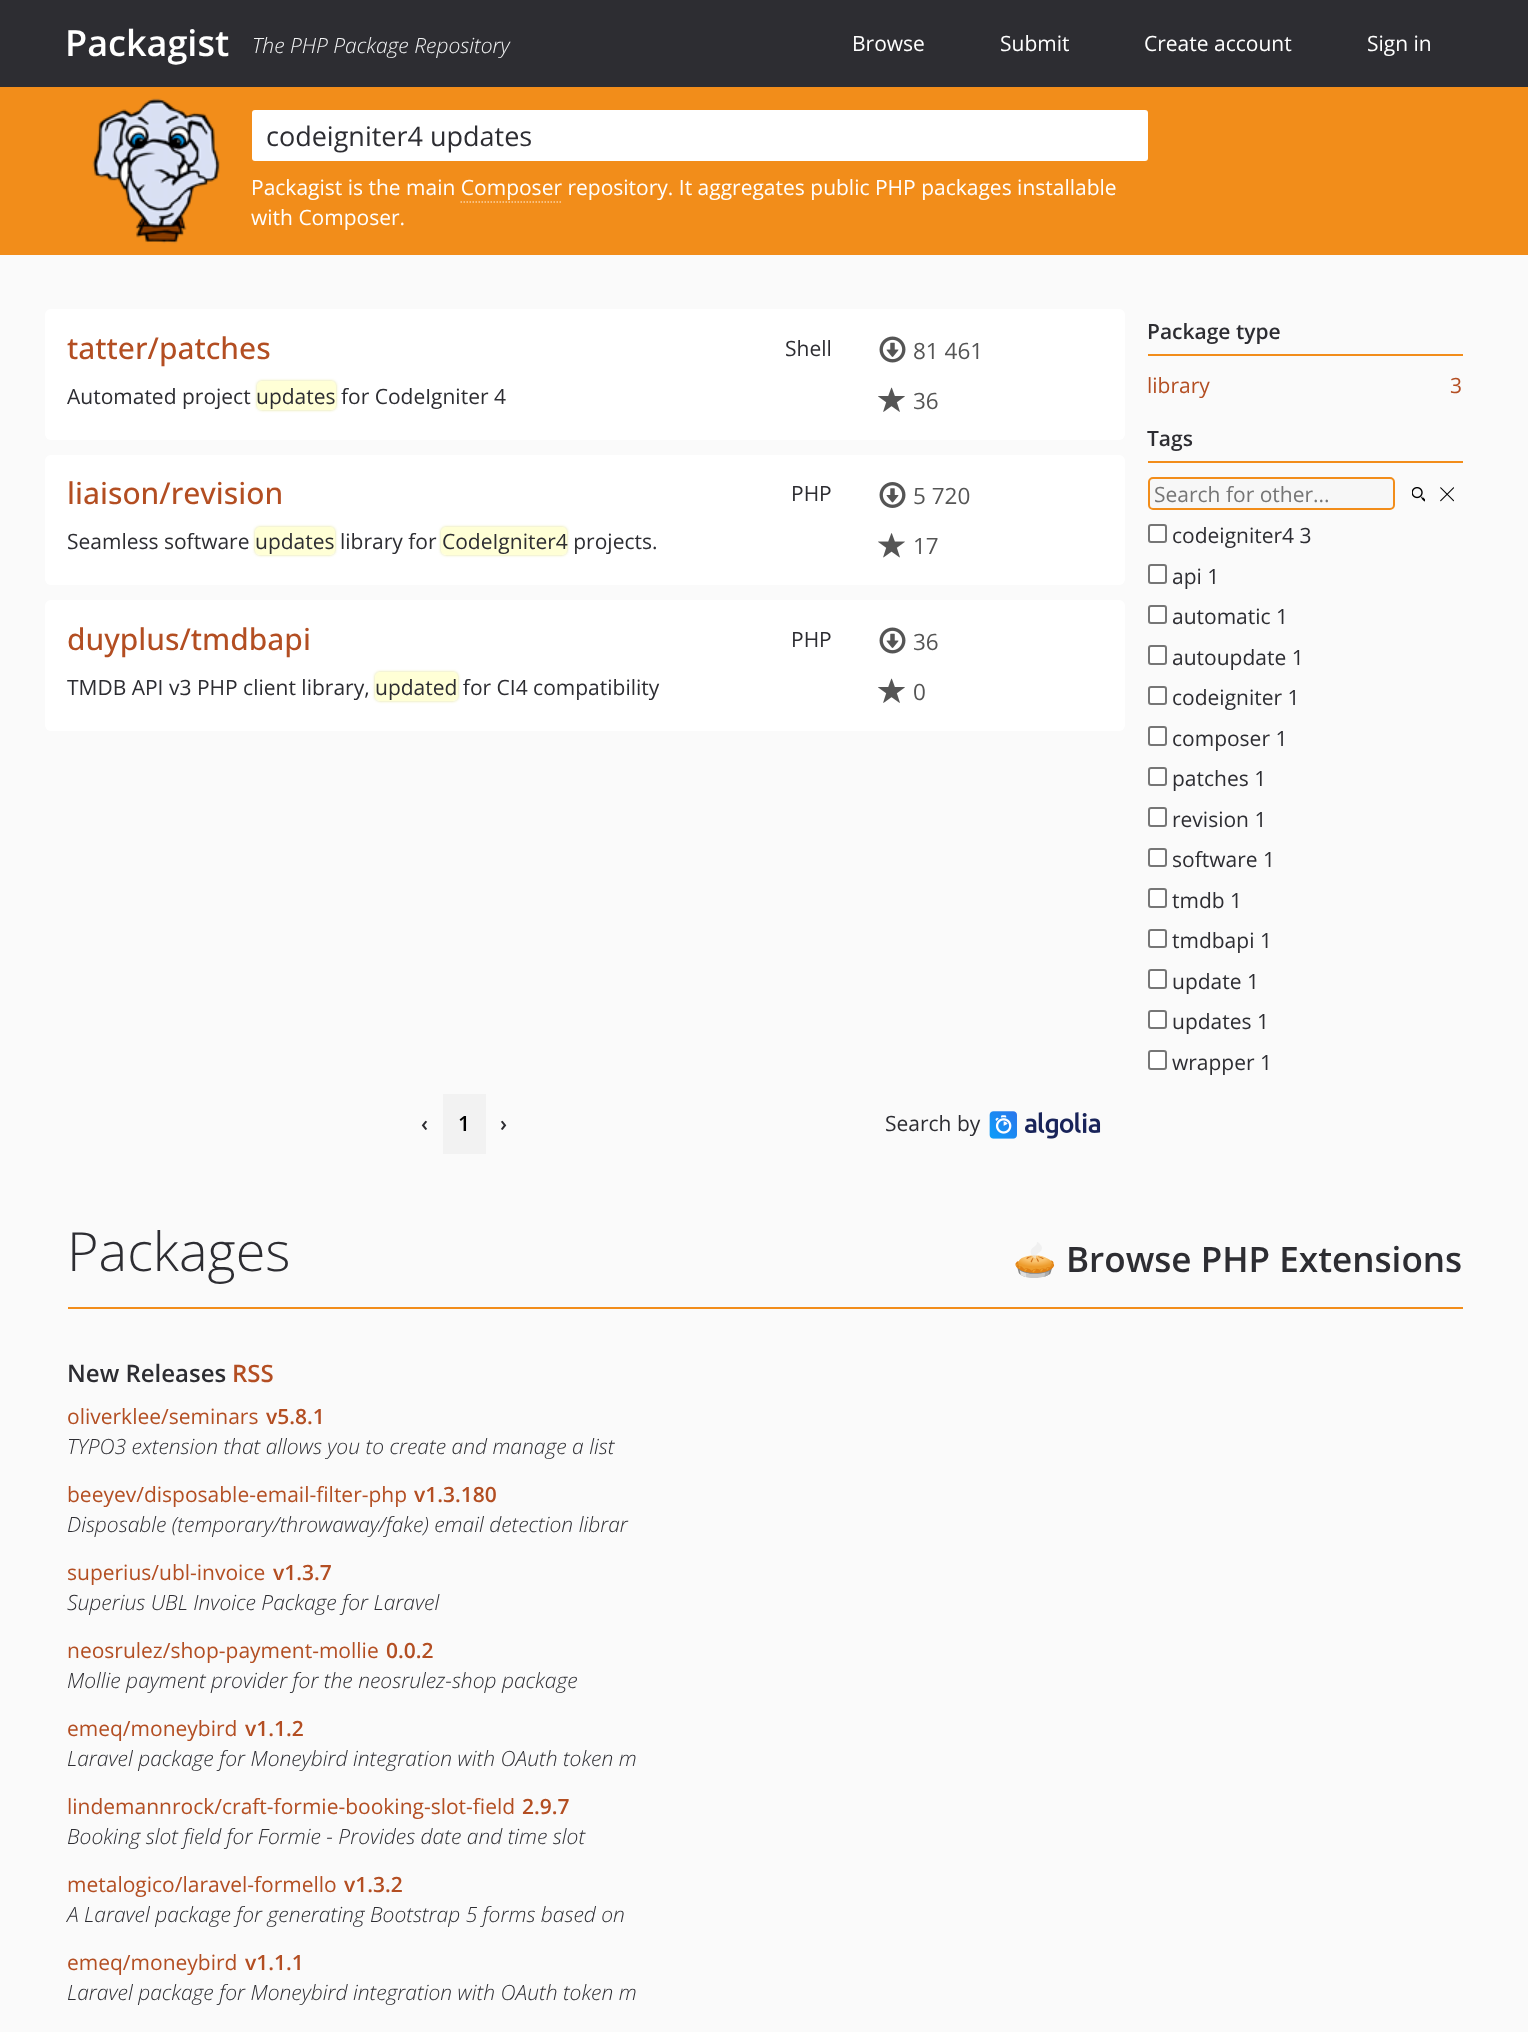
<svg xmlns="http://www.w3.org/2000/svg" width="1528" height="2032">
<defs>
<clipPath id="clip1"><path d="M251 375h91v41h-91zm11 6h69c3 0 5 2 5 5v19c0 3-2 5-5 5h-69c-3 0-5-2-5-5v-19c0-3 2-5 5-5z" clip-rule="evenodd"/></clipPath>
<clipPath id="clip2"><path d="M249 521h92v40h-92zm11 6h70c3 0 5 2 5 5v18c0 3-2 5-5 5h-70c-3 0-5-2-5-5v-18c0-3 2-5 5-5z" clip-rule="evenodd"/></clipPath>
<clipPath id="clip3"><path d="M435 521h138v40h-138zm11 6h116c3 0 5 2 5 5v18c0 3-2 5-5 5h-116c-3 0-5-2-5-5v-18c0-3 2-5 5-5z" clip-rule="evenodd"/></clipPath>
<clipPath id="clip4"><path d="M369 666h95v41h-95zm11 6h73c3 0 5 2 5 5v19c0 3-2 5-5 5h-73c-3 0-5-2-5-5v-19c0-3 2-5 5-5z" clip-rule="evenodd"/></clipPath>
</defs>
<rect width="100%" height="100%" fill="#fafafa"/>
<rect width="1528" height="87" fill="#2d2d32"/>
<text x="65" y="56" style="font-family:Open Sans;font-size:36px;font-weight:600;fill:#fff">Packagist</text>
<text x="252" y="53" style="font-family:Open Sans;font-size:21px;font-weight:300;font-style:italic;fill:#f3f4f5">The PHP Package Repository</text>
<text x="852" y="51" style="font-family:Open Sans;font-size:21px;fill:#fff">Browse</text>
<text x="1000" y="51" style="font-family:Open Sans;font-size:21px;fill:#fff">Submit</text>
<text x="1144" y="51" style="font-family:Open Sans;font-size:21px;fill:#fff">Create account</text>
<text x="1367" y="51" style="font-family:Open Sans;font-size:21px;fill:#fff">Sign in</text>
<rect y="87" width="1528" height="168" fill="#f28d1a"/>
<rect x="252" y="110" width="896" height="51" rx="3" fill="#fff"/>
<text x="266" y="146" style="font-family:Open Sans;font-size:27px;fill:#2d2d32">codeigniter4 updates</text>
<image x="92" y="98" width="128" height="146" href="media/1.png"/>
<text x="251" y="195" style="font-family:Open Sans;font-size:21px;fill:#fff">Packagist is the main Composer repository. It aggregates public PHP packages installable</text>
<path d="M460.5 202h102" fill="none" stroke="#fad1a3" stroke-width="1.5" stroke-dasharray="1.5 1.5"/>
<text x="251" y="225" style="font-family:Open Sans;font-size:21px;fill:#fff">with Composer.</text>
<rect x="45" y="309" width="1080" height="131" rx="6" fill="#fff"/>
<text x="67" y="359" style="font-family:Open Sans;font-size:30px;font-weight:500;fill:#b34e22">tatter/patches</text>
<text x="785" y="356" style="font-family:Open Sans;font-size:21px;fill:#2d2d32">Shell</text>
<text x="67" y="404" style="font-family:Open Sans;font-size:21px;fill:#2d2d32">Automated project</text>
<g clip-path="url(#clip1)">
<rect x="257" y="381" width="79" height="29" rx="5" fill="#d2d25bab" filter="blur(1.5px)"/>
</g>
<rect x="257" y="381" width="79" height="29" rx="5" fill="#ffff0029"/>
<text x="256" y="404" style="font-family:Open Sans;font-size:21px;fill:#2d2d32">updates for CodeIgniter 4</text>
<image x="879" y="336" width="27" height="27" href="media/2.png"/>
<text x="913" y="359" style="font-family:Open Sans;font-size:22.5px;fill:#555">81 461</text>
<image x="878" y="387" width="27" height="25" href="media/3.png"/>
<text x="913" y="409" style="font-family:Open Sans;font-size:22.5px;fill:#555">36</text>
<rect x="45" y="455" width="1080" height="130" rx="6" fill="#fff"/>
<text x="67" y="504" style="font-family:Open Sans;font-size:30px;font-weight:500;fill:#b34e22">liaison/revision</text>
<text x="791" y="501" style="font-family:Open Sans;font-size:21px;fill:#2d2d32">PHP</text>
<text x="67" y="549" style="font-family:Open Sans;font-size:21px;fill:#2d2d32">Seamless software</text>
<g clip-path="url(#clip2)">
<rect x="255" y="527" width="80" height="28" rx="5" fill="#d2d25bab" filter="blur(1.5px)"/>
</g>
<rect x="255" y="527" width="80" height="28" rx="5" fill="#ffff0029"/>
<text x="255" y="549" style="font-family:Open Sans;font-size:21px;fill:#2d2d32">updates library for</text>
<g clip-path="url(#clip3)">
<rect x="441" y="527" width="126" height="28" rx="5" fill="#d2d25bab" filter="blur(1.5px)"/>
</g>
<rect x="441" y="527" width="126" height="28" rx="5" fill="#ffff0029"/>
<text x="442" y="549" style="font-family:Open Sans;font-size:21px;fill:#2d2d32">CodeIgniter4 projects.</text>
<image x="879" y="482" width="27" height="26" href="media/4.png"/>
<text x="913" y="504" style="font-family:Open Sans;font-size:22.5px;fill:#555">5 720</text>
<image x="878" y="533" width="27" height="25" href="media/5.png"/>
<text x="913" y="554" style="font-family:Open Sans;font-size:22.5px;fill:#555">17</text>
<rect x="45" y="600" width="1080" height="131" rx="6" fill="#fff"/>
<text x="67" y="650" style="font-family:Open Sans;font-size:30px;font-weight:500;fill:#b34e22">duyplus/tmdbapi</text>
<text x="791" y="647" style="font-family:Open Sans;font-size:21px;fill:#2d2d32">PHP</text>
<text x="67" y="695" style="font-family:Open Sans;font-size:21px;fill:#2d2d32">TMDB API v3 PHP client library,</text>
<g clip-path="url(#clip4)">
<rect x="375" y="672" width="83" height="29" rx="5" fill="#d2d25bab" filter="blur(1.5px)"/>
</g>
<rect x="375" y="672" width="83" height="29" rx="5" fill="#ffff0029"/>
<text x="375" y="695" style="font-family:Open Sans;font-size:21px;fill:#2d2d32">updated for CI4 compatibility</text>
<image x="879" y="627" width="27" height="27" href="media/2.png"/>
<text x="913" y="650" style="font-family:Open Sans;font-size:22.5px;fill:#555">36</text>
<image x="878" y="678" width="27" height="25" href="media/3.png"/>
<text x="913" y="700" style="font-family:Open Sans;font-size:22.5px;fill:#555">0</text>
<rect x="1148" y="354" width="315" height="2" fill="#f28d1a"/>
<text x="1147" y="339" style="font-family:Open Sans;font-size:21px;font-weight:600;fill:#2d2d32">Package type</text>
<text x="1147" y="393" style="font-family:Open Sans;font-size:21px;fill:#b34e22">library</text>
<text x="1450" y="393" style="font-family:Open Sans;font-size:21px;fill:#b34e22">3</text>
<rect x="1148" y="461" width="315" height="2" fill="#f28d1a"/>
<text x="1147" y="446" style="font-family:Open Sans;font-size:21px;font-weight:600;fill:#2d2d32">Tags</text>
<rect x="1149" y="478" width="245" height="31" rx="4" fill="#f7f7f7" stroke="#f28d1a" stroke-width="2"/>
<text x="1154" y="502" style="font-family:Open Sans;font-size:21px;fill:#757575">Search for other...</text>
<image x="1412" y="487" width="13" height="15" href="media/6.png"/>
<image x="1440" y="487" width="14" height="15" href="media/7.png"/>
<rect x="1149" y="525" width="17" height="17" rx="2" fill="#fff" stroke="#767676" stroke-width="2"/>
<text x="1172" y="543" style="font-family:Open Sans;font-size:21px;fill:#2d2d32">codeigniter4 3</text>
<rect x="1149" y="565" width="17" height="18" rx="2" fill="#fff" stroke="#767676" stroke-width="2"/>
<text x="1172" y="584" style="font-family:Open Sans;font-size:21px;fill:#2d2d32">api 1</text>
<rect x="1149" y="606" width="17" height="17" rx="2" fill="#fff" stroke="#767676" stroke-width="2"/>
<text x="1172" y="624" style="font-family:Open Sans;font-size:21px;fill:#2d2d32">automatic 1</text>
<rect x="1149" y="646" width="17" height="18" rx="2" fill="#fff" stroke="#767676" stroke-width="2"/>
<text x="1172" y="665" style="font-family:Open Sans;font-size:21px;fill:#2d2d32">autoupdate 1</text>
<rect x="1149" y="687" width="17" height="17" rx="2" fill="#fff" stroke="#767676" stroke-width="2"/>
<text x="1172" y="705" style="font-family:Open Sans;font-size:21px;fill:#2d2d32">codeigniter 1</text>
<rect x="1149" y="727" width="17" height="18" rx="2" fill="#fff" stroke="#767676" stroke-width="2"/>
<text x="1172" y="746" style="font-family:Open Sans;font-size:21px;fill:#2d2d32">composer 1</text>
<rect x="1149" y="768" width="17" height="17" rx="2" fill="#fff" stroke="#767676" stroke-width="2"/>
<text x="1172" y="786" style="font-family:Open Sans;font-size:21px;fill:#2d2d32">patches 1</text>
<rect x="1149" y="808" width="17" height="18" rx="2" fill="#fff" stroke="#767676" stroke-width="2"/>
<text x="1172" y="827" style="font-family:Open Sans;font-size:21px;fill:#2d2d32">revision 1</text>
<rect x="1149" y="849" width="17" height="17" rx="2" fill="#fff" stroke="#767676" stroke-width="2"/>
<text x="1172" y="867" style="font-family:Open Sans;font-size:21px;fill:#2d2d32">software 1</text>
<rect x="1149" y="889" width="17" height="18" rx="2" fill="#fff" stroke="#767676" stroke-width="2"/>
<text x="1172" y="908" style="font-family:Open Sans;font-size:21px;fill:#2d2d32">tmdb 1</text>
<rect x="1149" y="930" width="17" height="17" rx="2" fill="#fff" stroke="#767676" stroke-width="2"/>
<text x="1172" y="948" style="font-family:Open Sans;font-size:21px;fill:#2d2d32">tmdbapi 1</text>
<rect x="1149" y="970" width="17" height="18" rx="2" fill="#fff" stroke="#767676" stroke-width="2"/>
<text x="1172" y="989" style="font-family:Open Sans;font-size:21px;fill:#2d2d32">update 1</text>
<rect x="1149" y="1011" width="17" height="17" rx="2" fill="#fff" stroke="#767676" stroke-width="2"/>
<text x="1172" y="1029" style="font-family:Open Sans;font-size:21px;fill:#2d2d32">updates 1</text>
<rect x="1149" y="1051" width="17" height="18" rx="2" fill="#fff" stroke="#767676" stroke-width="2"/>
<text x="1172" y="1070" style="font-family:Open Sans;font-size:21px;fill:#2d2d32">wrapper 1</text>
<text x="421" y="1131" style="font-family:Open Sans;font-size:21px;font-weight:600;fill:#2d2d32">‹</text>
<rect x="443" y="1094" width="43" height="60" fill="#f2f2f2"/>
<text x="458" y="1131" style="font-family:Open Sans;font-size:21px;font-weight:600;fill:#000">1</text>
<text x="500" y="1131" style="font-family:Open Sans;font-size:21px;font-weight:600;fill:#2d2d32">›</text>
<text x="885" y="1131" style="font-family:Open Sans;font-size:21px;fill:#2d2d32">Search by</text>
<image x="989" y="1111" width="112" height="28" href="media/8.png"/>
<rect x="68" y="1307" width="1395" height="2" fill="#f28d1a"/>
<text x="67" y="1271" style="font-family:Open Sans;font-size:54px;font-weight:300;fill:#2d2d32">Packages</text>
<text x="1013" y="1272" style="font-family:Noto Color Emoji;font-size:35.1px;font-weight:bold;fill:#2d2d32">🥧</text>
<text x="1066" y="1272" style="font-family:Open Sans;font-size:35.1px;font-weight:600;fill:#2d2d32">Browse PHP Extensions</text>
<text x="67" y="1382" style="font-family:Open Sans;font-size:24px;font-weight:600;fill:#2d2d32">New Releases</text>
<text x="232" y="1382" style="font-family:Open Sans;font-size:24px;font-weight:600;fill:#b34e22">RSS</text>
<text x="67" y="1424" style="font-family:Open Sans;font-size:21px;fill:#b34e22">oliverklee/seminars</text>
<text x="266" y="1424" style="font-family:Open Sans;font-size:21px;font-weight:600;fill:#b34e22">v5.8.1</text>
<text x="67" y="1454" style="font-family:Open Sans;font-size:21px;font-weight:300;font-style:italic;fill:#2d2d32">TYPO3 extension that allows you to create and manage a list</text>
<text x="67" y="1502" style="font-family:Open Sans;font-size:21px;fill:#b34e22">beeyev/disposable-email-filter-php</text>
<text x="414" y="1502" style="font-family:Open Sans;font-size:21px;font-weight:600;fill:#b34e22">v1.3.180</text>
<text x="67" y="1532" style="font-family:Open Sans;font-size:21px;font-weight:300;font-style:italic;fill:#2d2d32">Disposable (temporary/throwaway/fake) email detection librar</text>
<text x="67" y="1580" style="font-family:Open Sans;font-size:21px;fill:#b34e22">superius/ubl-invoice</text>
<text x="273" y="1580" style="font-family:Open Sans;font-size:21px;font-weight:600;fill:#b34e22">v1.3.7</text>
<text x="67" y="1610" style="font-family:Open Sans;font-size:21px;font-weight:300;font-style:italic;fill:#2d2d32">Superius UBL Invoice Package for Laravel</text>
<text x="67" y="1658" style="font-family:Open Sans;font-size:21px;fill:#b34e22">neosrulez/shop-payment-mollie</text>
<text x="386" y="1658" style="font-family:Open Sans;font-size:21px;font-weight:600;fill:#b34e22">0.0.2</text>
<text x="67" y="1688" style="font-family:Open Sans;font-size:21px;font-weight:300;font-style:italic;fill:#2d2d32">Mollie payment provider for the neosrulez-shop package</text>
<text x="67" y="1736" style="font-family:Open Sans;font-size:21px;fill:#b34e22">emeq/moneybird</text>
<text x="245" y="1736" style="font-family:Open Sans;font-size:21px;font-weight:600;fill:#b34e22">v1.1.2</text>
<text x="67" y="1766" style="font-family:Open Sans;font-size:21px;font-weight:300;font-style:italic;fill:#2d2d32">Laravel package for Moneybird integration with OAuth token m</text>
<text x="67" y="1814" style="font-family:Open Sans;font-size:21px;fill:#b34e22">lindemannrock/craft-formie-booking-slot-field</text>
<text x="522" y="1814" style="font-family:Open Sans;font-size:21px;font-weight:600;fill:#b34e22">2.9.7</text>
<text x="67" y="1844" style="font-family:Open Sans;font-size:21px;font-weight:300;font-style:italic;fill:#2d2d32">Booking slot field for Formie - Provides date and time slot</text>
<text x="67" y="1892" style="font-family:Open Sans;font-size:21px;fill:#b34e22">metalogico/laravel-formello</text>
<text x="344" y="1892" style="font-family:Open Sans;font-size:21px;font-weight:600;fill:#b34e22">v1.3.2</text>
<text x="67" y="1922" style="font-family:Open Sans;font-size:21px;font-weight:300;font-style:italic;fill:#2d2d32">A Laravel package for generating Bootstrap 5 forms based on</text>
<text x="67" y="1970" style="font-family:Open Sans;font-size:21px;fill:#b34e22">emeq/moneybird</text>
<text x="245" y="1970" style="font-family:Open Sans;font-size:21px;font-weight:600;fill:#b34e22">v1.1.1</text>
<text x="67" y="2000" style="font-family:Open Sans;font-size:21px;font-weight:300;font-style:italic;fill:#2d2d32">Laravel package for Moneybird integration with OAuth token m</text>
</svg>
